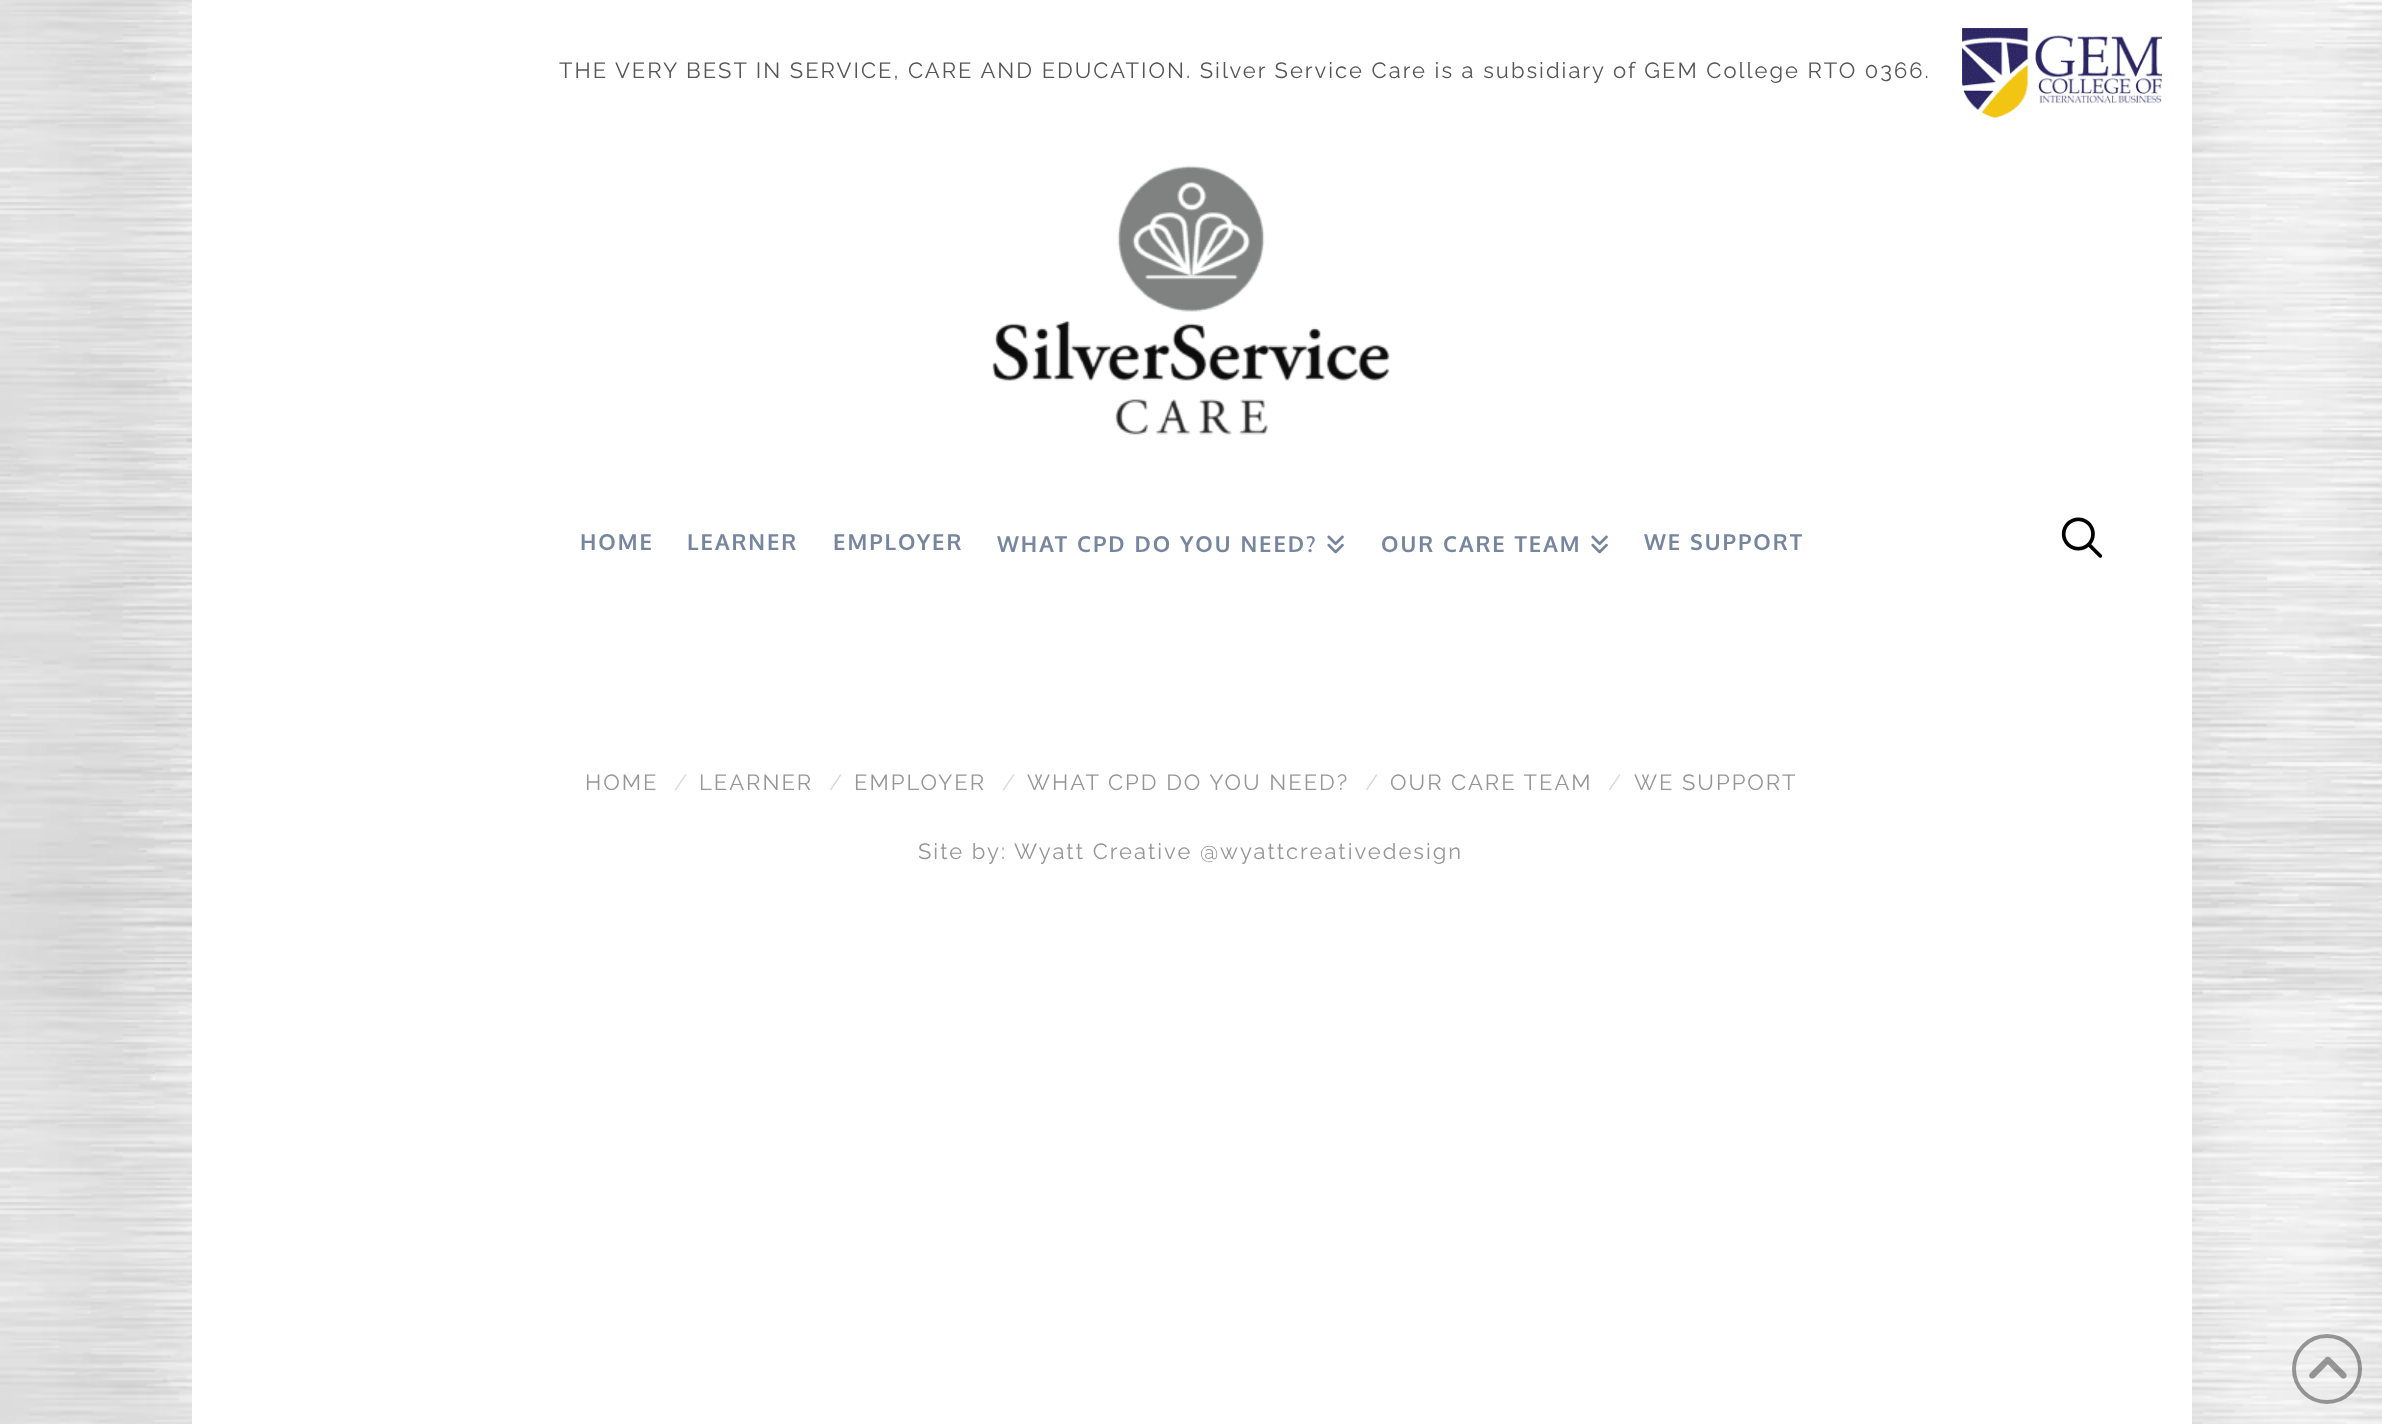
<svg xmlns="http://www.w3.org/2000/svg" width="2382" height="1424">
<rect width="100%" height="100%" fill="#fff"/>
<image x="0" y="0" width="2382" height="1424" href="media/1.png"/>
<rect x="192" width="2000" height="1424" fill="#fff"/>
<text x="559" y="78" style="font-family:Raleway;font-size:22px;letter-spacing:2px;fill:#555">THE VERY BEST IN SERVICE, CARE AND EDUCATION. Silver Service Care is a subsidiary of GEM College RTO 0366.</text>
<image x="1962" y="28" width="200" height="90" href="media/2.png"/>
<image x="992" y="165" width="398" height="270" href="media/3.png"/>
<text x="580" y="550" style="font-family:Oxygen;font-size:22px;font-weight:bold;letter-spacing:2px;fill:#77869f">HOME</text>
<text x="687" y="550" style="font-family:Oxygen;font-size:22px;font-weight:bold;letter-spacing:2px;fill:#77869f">LEARNER</text>
<text x="833" y="550" style="font-family:Oxygen;font-size:22px;font-weight:bold;letter-spacing:2px;fill:#77869f">EMPLOYER</text>
<text x="997" y="552" style="font-family:Oxygen;font-size:22px;font-weight:bold;letter-spacing:2px;fill:#77869f">WHAT CPD DO YOU NEED?</text>
<image x="1327" y="535" width="17" height="19" href="media/4.png"/>
<text x="1381" y="552" style="font-family:Oxygen;font-size:22px;font-weight:bold;letter-spacing:2px;fill:#77869f">OUR CARE TEAM</text>
<image x="1591" y="535" width="17" height="19" href="media/4.png"/>
<text x="1644" y="550" style="font-family:Oxygen;font-size:22px;font-weight:bold;letter-spacing:2px;fill:#77869f">WE SUPPORT</text>
<image x="2061" y="517" width="42" height="41" href="media/5.png"/>
<text x="585" y="790" style="font-family:Raleway;font-size:22px;letter-spacing:2px;fill:#969696">HOME</text>
<text x="674" y="790" style="font-family:Raleway;font-size:22px;fill:#dadada">/</text>
<text x="699" y="790" style="font-family:Raleway;font-size:22px;letter-spacing:2px;fill:#969696">LEARNER</text>
<text x="829" y="790" style="font-family:Raleway;font-size:22px;fill:#dadada">/</text>
<text x="854" y="790" style="font-family:Raleway;font-size:22px;letter-spacing:2px;fill:#969696">EMPLOYER</text>
<text x="1002" y="790" style="font-family:Raleway;font-size:22px;fill:#dadada">/</text>
<text x="1027" y="790" style="font-family:Raleway;font-size:22px;letter-spacing:2px;fill:#969696">WHAT CPD DO YOU NEED?</text>
<text x="1365" y="790" style="font-family:Raleway;font-size:22px;fill:#dadada">/</text>
<text x="1390" y="790" style="font-family:Raleway;font-size:22px;letter-spacing:2px;fill:#969696">OUR CARE TEAM</text>
<text x="1608" y="790" style="font-family:Raleway;font-size:22px;fill:#dadada">/</text>
<text x="1634" y="790" style="font-family:Raleway;font-size:22px;letter-spacing:2px;fill:#969696">WE SUPPORT</text>
<text x="918" y="859" style="font-family:Raleway;font-size:22px;letter-spacing:2px;fill:#969696">Site by:</text>
<text x="1014" y="859" style="font-family:Raleway;font-size:22px;letter-spacing:2px;fill:#969696">Wyatt Creative @wyattcreativedesign</text>
<circle cx="2327" cy="1369" r="33" fill="none" stroke="#00000061" stroke-width="4"/>
<image x="2309" y="1356" width="38" height="23" href="media/6.png"/>
</svg>
